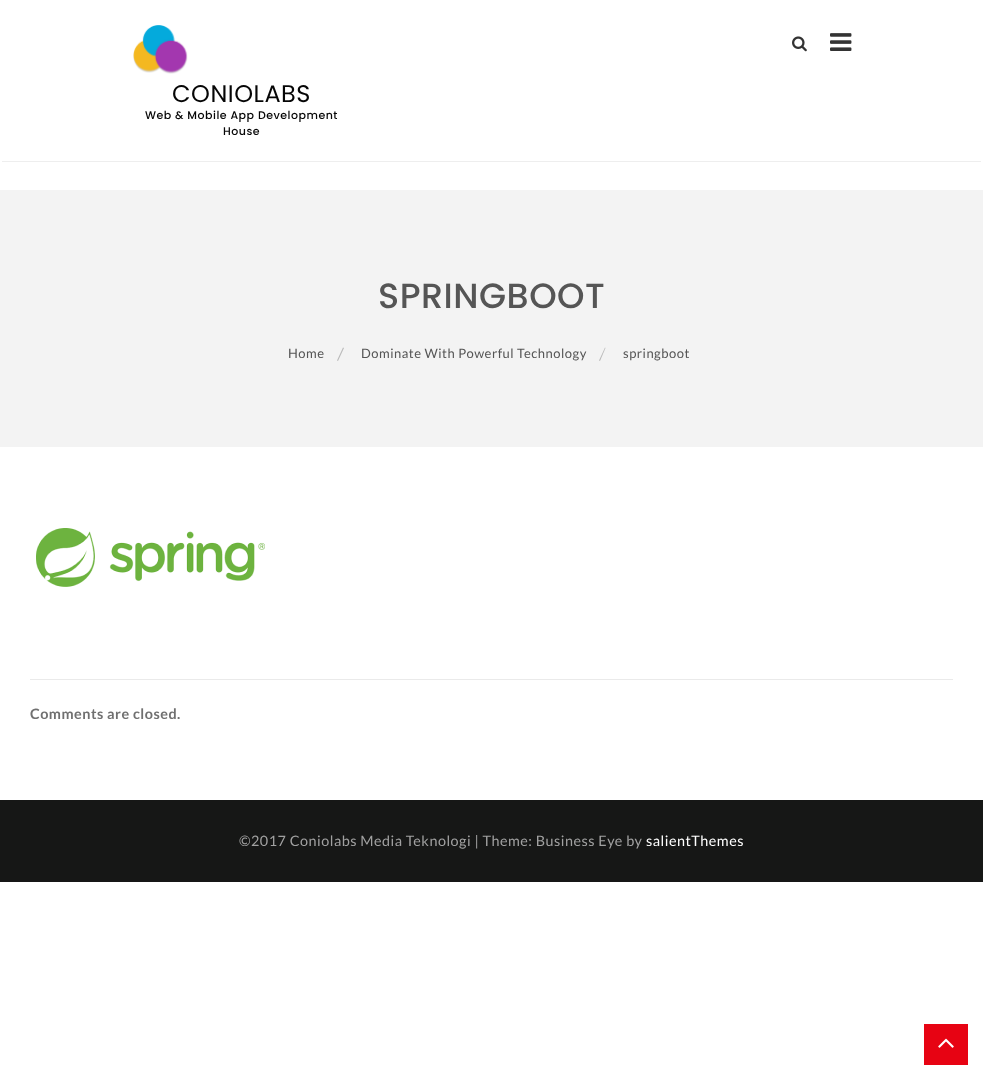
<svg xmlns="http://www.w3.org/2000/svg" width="983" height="1080">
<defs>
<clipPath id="clip1"><rect x="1" y="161" width="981" height="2"/></clipPath>
</defs>
<rect width="100%" height="100%" fill="#fff"/>
<g clip-path="url(#clip1)">
<rect x="2" y="5" width="979" height="157" fill="#eee" filter="blur(0.5px)"/>
</g>
<image x="792" y="36" width="15" height="16" href="media/1.png"/>
<image x="830" y="33" width="22" height="18" href="media/2.png"/>
<image x="133" y="25" width="55" height="49" href="media/3.png"/>
<text x="172" y="102" style="font-family:Poppins;font-size:24px;letter-spacing:0.5px;fill:#060606">CONIOLABS</text>
<text x="145" y="119" style="font-family:Poppins;font-size:11px;font-weight:500;letter-spacing:0.5px;fill:#060606">Web &amp; Mobile App Development</text>
<text x="223" y="135" style="font-family:Poppins;font-size:11px;font-weight:500;letter-spacing:0.5px;fill:#060606">House</text>
<rect y="190" width="983" height="257" fill="#f3f3f3"/>
<text x="378" y="308" style="font-family:Poppins;font-size:35px;font-weight:500;letter-spacing:0.5px;fill:#555">SPRINGBOOT</text>
<text x="288" y="358" style="font-family:Lato;font-size:13px;letter-spacing:0.5px;fill:#555">Home</text>
<path d="M343 347.5l1 .5l-6 13l-1-.5z" fill="#bababa"/>
<text x="361" y="358" style="font-family:Lato;font-size:13px;letter-spacing:0.5px;fill:#555">Dominate With Powerful Technology</text>
<path d="M605 347.5l.5 .5l-5.5 13l-1-.5z" fill="#bababa"/>
<text x="623" y="358" style="font-family:Lato;font-size:13px;letter-spacing:0.5px;fill:#555">springboot</text>
<image x="36" y="528" width="229" height="59" href="media/4.png"/>
<rect x="30" y="679" width="923" height="1" fill="#eaeaea"/>
<text x="30" y="719" style="font-family:Lato;font-size:14.4px;font-weight:bold;letter-spacing:0.5px;fill:#707070">Comments are closed.</text>
<rect y="800" width="983" height="82" fill="#161716"/>
<text x="239" y="846" style="font-family:Lato;font-size:14.4px;letter-spacing:0.5px;fill:#a1a1a1">©2017 Coniolabs Media Teknologi | Theme: Business Eye by</text>
<text x="646" y="846" style="font-family:Lato;font-size:14.4px;letter-spacing:0.5px;fill:#fff">salientThemes</text>
<rect x="924" y="1024" width="44" height="41" fill="#e70313"/>
<image x="938" y="1038" width="16" height="10" href="media/5.png"/>
</svg>
